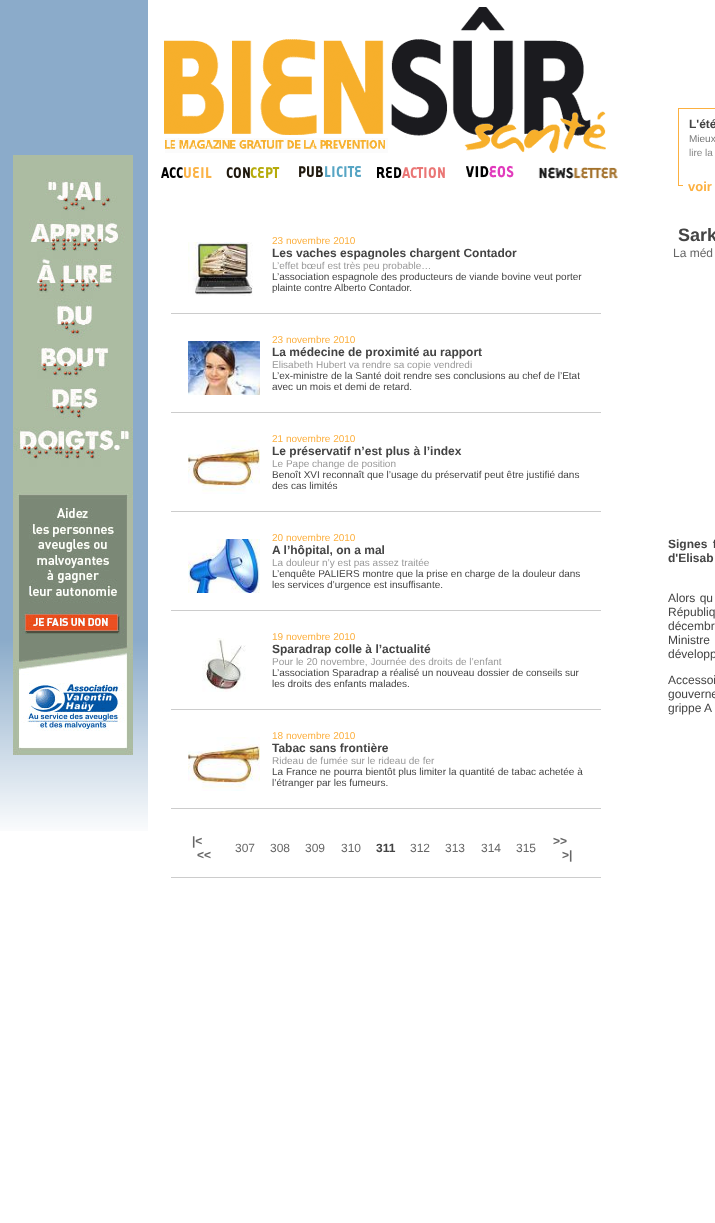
<svg xmlns="http://www.w3.org/2000/svg" width="715" height="1223">
<rect width="100%" height="100%" fill="#fff"/>
<image x="0" y="0" width="148" height="831" href="media/1.png"/>
<image x="13" y="155" width="120" height="600" href="media/2.png"/>
<image x="164" y="7" width="442" height="146" href="media/3.png"/>
<image x="161" y="167" width="51" height="11" href="media/4.png"/>
<image x="226" y="167" width="54" height="11" href="media/5.png"/>
<image x="299" y="166" width="62" height="11" href="media/6.png"/>
<image x="377" y="167" width="68" height="11" href="media/7.png"/>
<image x="466" y="165" width="48" height="13" href="media/8.png"/>
<image x="538" y="167" width="80" height="12" href="media/9.png"/>
<rect x="678.5" y="108.5" width="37" height="77" fill="none" stroke="#fcb040"/>
<text x="689" y="128" style="font-family:Liberation Sans;font-size:12px;font-weight:bold;fill:#444">L'été</text>
<text x="689" y="142" style="font-family:Liberation Sans;font-size:10px;fill:#777">Mieux</text>
<text x="689" y="156" style="font-family:Liberation Sans;font-size:10px;fill:#888">lire la</text>
<rect x="683" y="185" width="32" height="1" fill="#fff"/>
<text x="688" y="191" style="font-family:Liberation Sans;font-size:13px;font-weight:bold;fill:#fcb040">voir</text>
<rect x="171" y="313" width="430" height="1" fill="#ccc"/>
<image x="188" y="242" width="65" height="54" href="media/10.png"/>
<text x="272" y="244" style="font-family:Liberation Sans;font-size:10px;fill:#fcb040">23 novembre 2010</text>
<text x="272" y="257" style="font-family:Liberation Sans;font-size:12px;font-weight:bold;fill:#444">Les vaches espagnoles chargent Contador</text>
<text x="272" y="269" style="font-family:Liberation Sans;font-size:10px;fill:#999">L’effet bœuf est très peu probable…</text>
<text x="272" y="280" style="font-family:Liberation Sans;font-size:10px;fill:#444">L’association espagnole des producteurs de viande bovine veut porter</text>
<text x="272" y="291" style="font-family:Liberation Sans;font-size:10px;fill:#444">plainte contre Alberto Contador.</text>
<rect x="171" y="412" width="430" height="1" fill="#ccc"/>
<image x="188" y="341" width="72" height="54" href="media/11.png"/>
<text x="272" y="343" style="font-family:Liberation Sans;font-size:10px;fill:#fcb040">23 novembre 2010</text>
<text x="272" y="356" style="font-family:Liberation Sans;font-size:12px;font-weight:bold;fill:#444">La médecine de proximité au rapport</text>
<text x="272" y="368" style="font-family:Liberation Sans;font-size:10px;fill:#999">Elisabeth Hubert va rendre sa copie vendredi</text>
<text x="272" y="379" style="font-family:Liberation Sans;font-size:10px;fill:#444">L’ex-ministre de la Santé doit rendre ses conclusions au chef de l’Etat</text>
<text x="272" y="390" style="font-family:Liberation Sans;font-size:10px;fill:#444">avec un mois et demi de retard.</text>
<rect x="171" y="511" width="430" height="1" fill="#ccc"/>
<image x="188" y="440" width="72" height="54" href="media/12.png"/>
<text x="272" y="442" style="font-family:Liberation Sans;font-size:10px;fill:#fcb040">21 novembre 2010</text>
<text x="272" y="455" style="font-family:Liberation Sans;font-size:12px;font-weight:bold;fill:#444">Le préservatif n’est plus à l’index</text>
<text x="272" y="467" style="font-family:Liberation Sans;font-size:10px;fill:#999">Le Pape change de position</text>
<text x="272" y="478" style="font-family:Liberation Sans;font-size:10px;fill:#444">Benoît XVI reconnaît que l’usage du préservatif peut être justifié dans</text>
<text x="272" y="489" style="font-family:Liberation Sans;font-size:10px;fill:#444">des cas limités</text>
<rect x="171" y="610" width="430" height="1" fill="#ccc"/>
<image x="188" y="539" width="72" height="54" href="media/13.png"/>
<text x="272" y="541" style="font-family:Liberation Sans;font-size:10px;fill:#fcb040">20 novembre 2010</text>
<text x="272" y="554" style="font-family:Liberation Sans;font-size:12px;font-weight:bold;fill:#444">A l’hôpital, on a mal</text>
<text x="272" y="566" style="font-family:Liberation Sans;font-size:10px;fill:#999">La douleur n’y est pas assez traitée</text>
<text x="272" y="577" style="font-family:Liberation Sans;font-size:10px;fill:#444">L’enquête PALIERS montre que la prise en charge de la douleur dans</text>
<text x="272" y="588" style="font-family:Liberation Sans;font-size:10px;fill:#444">les services d’urgence est insuffisante.</text>
<rect x="171" y="709" width="430" height="1" fill="#ccc"/>
<image x="202" y="638" width="44" height="54" href="media/14.png"/>
<text x="272" y="640" style="font-family:Liberation Sans;font-size:10px;fill:#fcb040">19 novembre 2010</text>
<text x="272" y="653" style="font-family:Liberation Sans;font-size:12px;font-weight:bold;fill:#444">Sparadrap colle à l’actualité</text>
<text x="272" y="665" style="font-family:Liberation Sans;font-size:10px;fill:#999">Pour le 20 novembre, Journée des droits de l’enfant</text>
<text x="272" y="676" style="font-family:Liberation Sans;font-size:10px;fill:#444">L’association Sparadrap a réalisé un nouveau dossier de conseils sur</text>
<text x="272" y="687" style="font-family:Liberation Sans;font-size:10px;fill:#444">les droits des enfants malades.</text>
<rect x="171" y="808" width="430" height="1" fill="#ccc"/>
<image x="188" y="737" width="72" height="54" href="media/12.png"/>
<text x="272" y="739" style="font-family:Liberation Sans;font-size:10px;fill:#fcb040">18 novembre 2010</text>
<text x="272" y="752" style="font-family:Liberation Sans;font-size:12px;font-weight:bold;fill:#444">Tabac sans frontière</text>
<text x="272" y="764" style="font-family:Liberation Sans;font-size:10px;fill:#999">Rideau de fumée sur le rideau de fer</text>
<text x="272" y="775" style="font-family:Liberation Sans;font-size:10px;fill:#444">La France ne pourra bientôt plus limiter la quantité de tabac achetée à</text>
<text x="272" y="786" style="font-family:Liberation Sans;font-size:10px;fill:#444">l’étranger par les fumeurs.</text>
<rect x="171" y="877" width="430" height="1" fill="#ccc"/>
<text x="192" y="845" style="font-family:Liberation Sans;font-size:12px;font-weight:bold;fill:#666">|&lt;</text>
<text x="197" y="859" style="font-family:Liberation Sans;font-size:12px;font-weight:bold;fill:#666">&lt;&lt;</text>
<text x="235" y="852" style="font-family:Liberation Sans;font-size:12px;fill:#666">307</text>
<text x="270" y="852" style="font-family:Liberation Sans;font-size:12px;fill:#666">308</text>
<text x="305" y="852" style="font-family:Liberation Sans;font-size:12px;fill:#666">309</text>
<text x="341" y="852" style="font-family:Liberation Sans;font-size:12px;fill:#666">310</text>
<text x="376" y="852" style="font-family:Liberation Sans;font-size:12px;font-weight:bold;fill:#444">311</text>
<text x="410" y="852" style="font-family:Liberation Sans;font-size:12px;fill:#666">312</text>
<text x="445" y="852" style="font-family:Liberation Sans;font-size:12px;fill:#666">313</text>
<text x="481" y="852" style="font-family:Liberation Sans;font-size:12px;fill:#666">314</text>
<text x="516" y="852" style="font-family:Liberation Sans;font-size:12px;fill:#666">315</text>
<text x="553" y="845" style="font-family:Liberation Sans;font-size:12px;font-weight:bold;fill:#666">&gt;&gt;</text>
<text x="562" y="859" style="font-family:Liberation Sans;font-size:12px;font-weight:bold;fill:#666">&gt;|</text>
<text x="678" y="241" style="font-family:Liberation Sans;font-size:18px;font-weight:bold;fill:#444">Sark</text>
<text x="673" y="257" style="font-family:Liberation Sans;font-size:12px;fill:#666">La méd</text>
<text x="668" y="548" word-spacing="2" style="font-family:Liberation Sans;font-size:12px;font-weight:bold;fill:#444">Signes f</text>
<text x="668" y="562" style="font-family:Liberation Sans;font-size:12px;font-weight:bold;fill:#444">d'Elisab</text>
<text x="668" y="602" word-spacing="1" style="font-family:Liberation Sans;font-size:12px;fill:#444">Alors qu</text>
<text x="668" y="616" word-spacing="6" style="font-family:Liberation Sans;font-size:12px;fill:#444">Républiq</text>
<text x="668" y="630" word-spacing="2" style="font-family:Liberation Sans;font-size:12px;fill:#444">décembr</text>
<text x="668" y="644" word-spacing="10" style="font-family:Liberation Sans;font-size:12px;fill:#444">Ministre</text>
<text x="668" y="658" style="font-family:Liberation Sans;font-size:12px;fill:#444">développ</text>
<text x="668" y="684" word-spacing="1" style="font-family:Liberation Sans;font-size:12px;fill:#444">Accessoi</text>
<text x="668" y="698" word-spacing="1" style="font-family:Liberation Sans;font-size:12px;fill:#444">gouverne</text>
<text x="668" y="712" style="font-family:Liberation Sans;font-size:12px;fill:#444">grippe A</text>
</svg>
